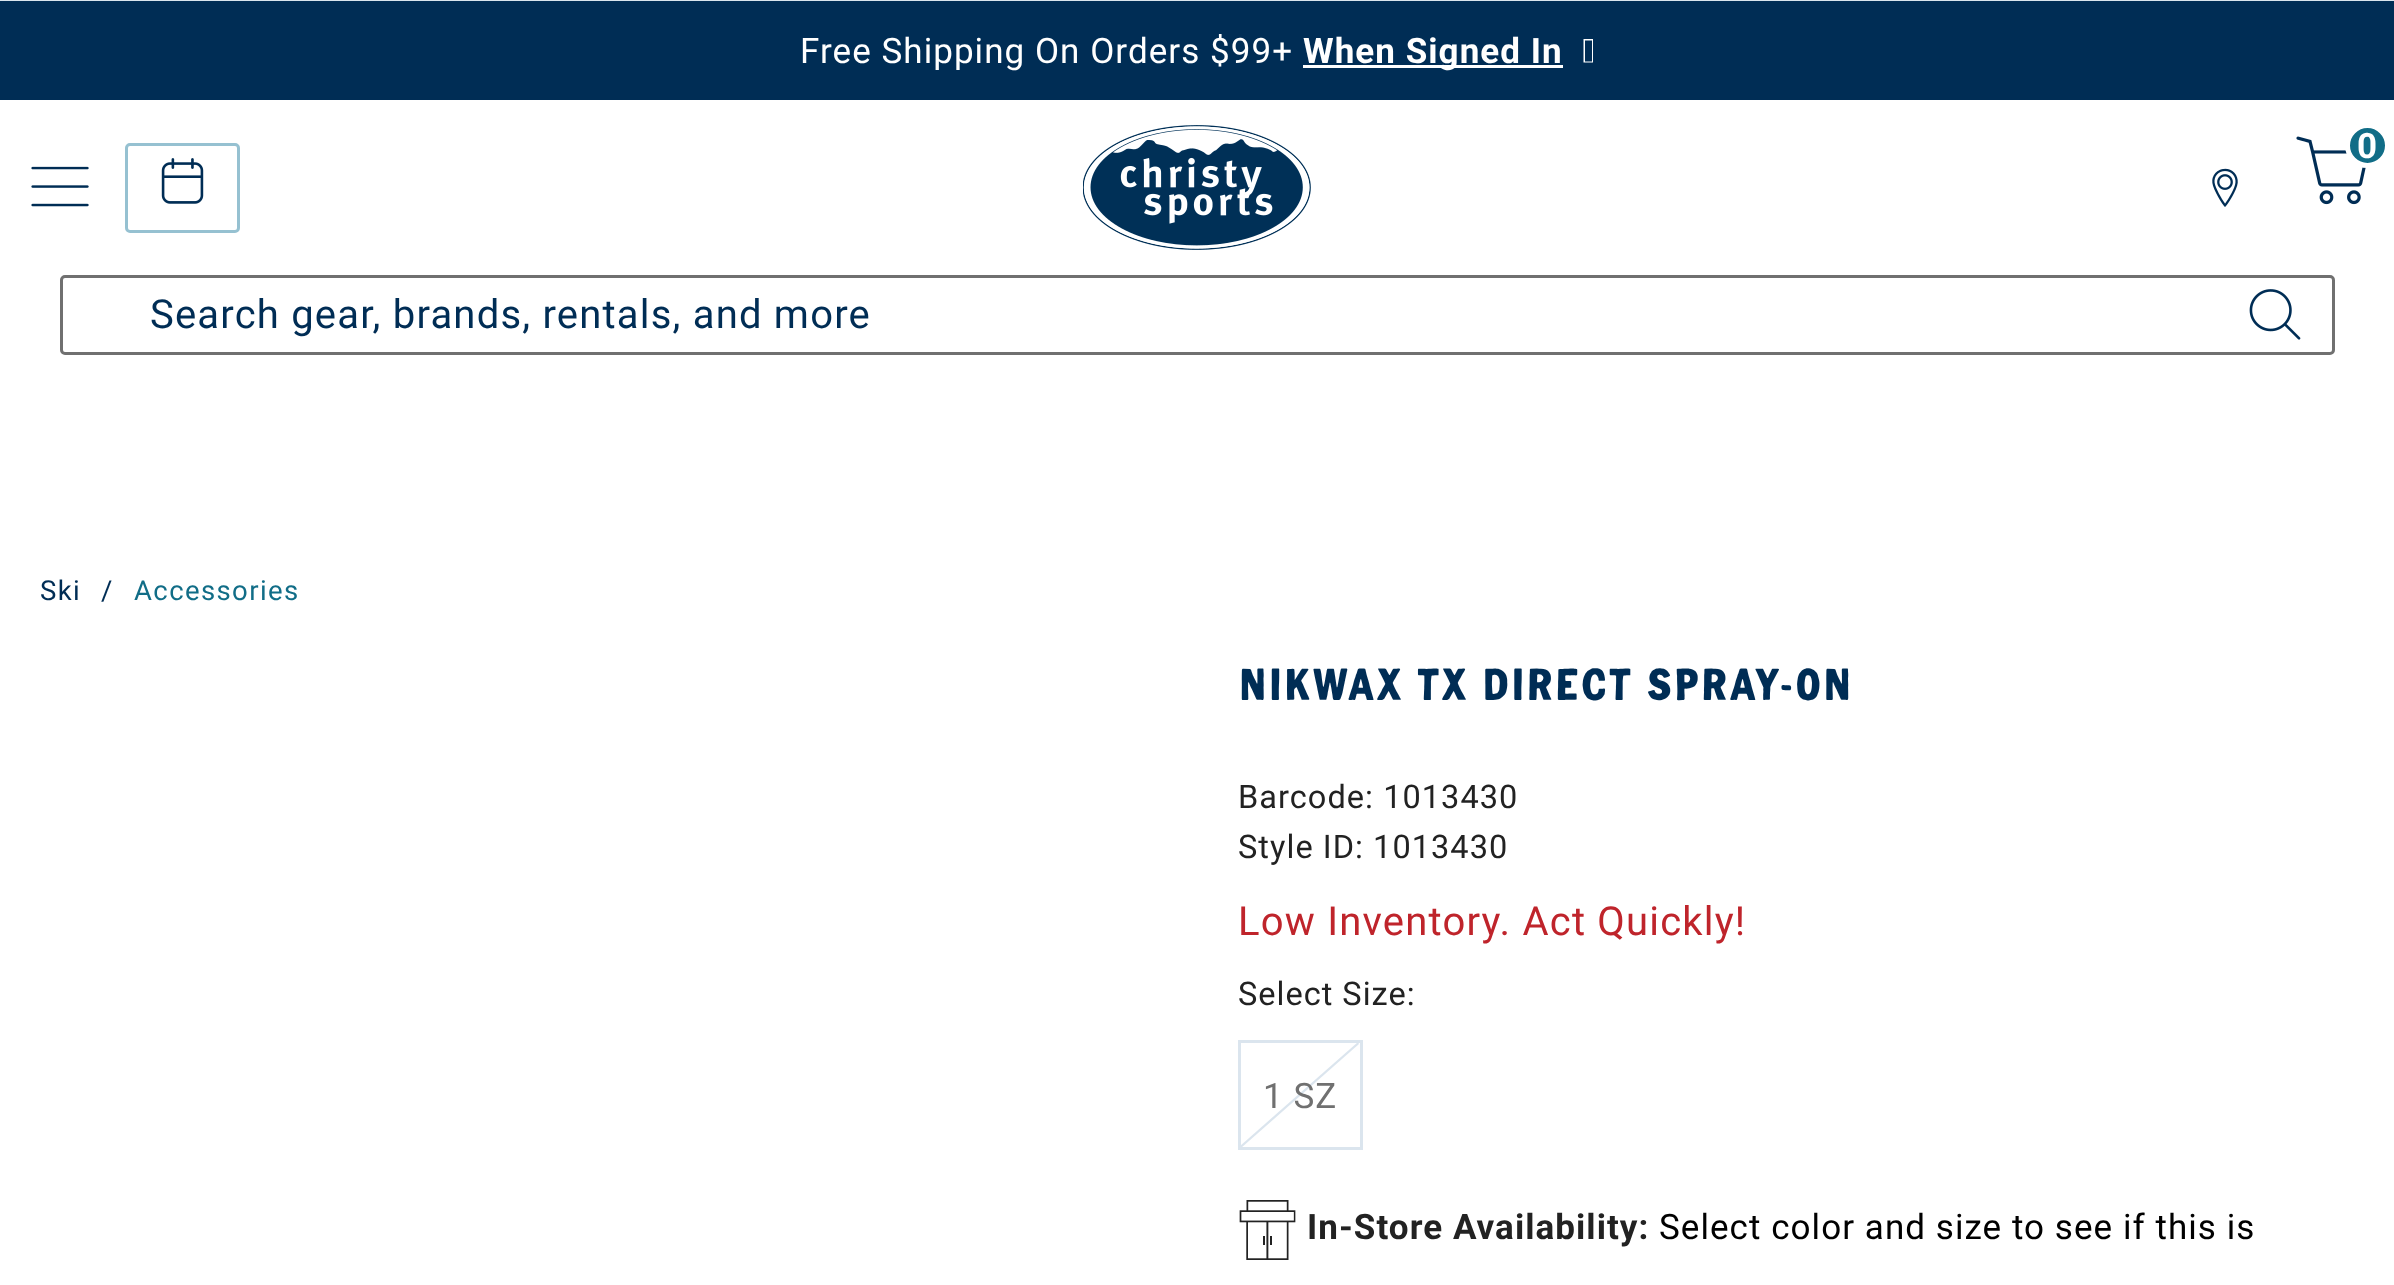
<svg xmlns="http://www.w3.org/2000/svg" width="2394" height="1285">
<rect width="100%" height="100%" fill="#fff"/>
<rect y="1" width="2394" height="99" fill="#002d55"/>
<text x="800" y="63" style="font-family:Roboto;font-size:35px;letter-spacing:1.05px;fill:#fff">Free Shipping On Orders $99+</text>
<rect x="1303" y="65" width="260" height="3" fill="#fff"/>
<text x="1303" y="63" style="font-family:Roboto;font-size:35px;font-weight:bold;letter-spacing:1.05px;fill:#fff">When Signed In</text>
<path d="M1583.5 62.5v-23.5h9.5v23.5zm1.5-1h7v-21h-7z" fill="#fff"/>
<image x="31" y="166" width="58" height="41" href="media/1.png"/>
<rect x="126.5" y="144.5" width="112" height="87" rx="3.5" fill="none" stroke="#96c1d1" stroke-width="3"/>
<image x="161" y="158" width="43" height="46" href="media/2.png"/>
<image x="1083" y="125" width="228" height="125" href="media/3.png"/>
<image x="2296" y="136" width="70" height="69" href="media/4.png"/>
<circle cx="2367.5" cy="145.5" r="20" fill="#116d87" stroke="#fff" stroke-width="5"/>
<text x="2357" y="158" style="font-family:Roboto;font-size:35px;font-weight:bold;letter-spacing:1.05px;fill:#fff">0</text>
<image x="2212" y="168" width="26" height="39" href="media/5.png"/>
<rect x="61.5" y="276.5" width="2272" height="77" rx="3.5" fill="none" stroke="#707070" stroke-width="3"/>
<text x="150" y="328" style="font-family:Roboto;font-size:40px;letter-spacing:1.2px;fill:#002d55">Search gear, brands, rentals, and more</text>
<image x="2249" y="289" width="52" height="51" href="media/6.png"/>
<text x="40" y="600" style="font-family:Roboto;font-size:27.5px;letter-spacing:1.4px;fill:#002d55">Ski</text>
<text x="101" y="600" style="font-family:Roboto;font-size:27.5px;letter-spacing:1.4px;fill:#002d55">/</text>
<text x="134" y="600" style="font-family:Roboto;font-size:27.5px;letter-spacing:1.4px;fill:#116d87">Accessories</text>
<text x="1238" y="700" style="font-family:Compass;font-size:45px;letter-spacing:0.45px;fill:#002d55">NIKWAX TX DIRECT SPRAY-ON</text>
<text x="1238" y="808" style="font-family:Roboto;font-size:32.5px;letter-spacing:1.05px;fill:#222">Barcode: 1013430</text>
<text x="1238" y="858" style="font-family:Roboto;font-size:32.5px;letter-spacing:1.05px;fill:#222">Style ID: 1013430</text>
<rect width="2394" height="1" fill="#dbe5ee"/>
<text x="1238" y="935" style="font-family:Roboto;font-size:40px;letter-spacing:1.2px;fill:#bf242b">Low Inventory. Act Quickly!</text>
<text x="1238" y="1005" style="font-family:Roboto;font-size:32.5px;letter-spacing:1px;fill:#222">Select Size:</text>
<path d="M1240 1146l118-104l1 2l-118 104" fill="#dbe5ee"/>
<rect x="1239.5" y="1041.5" width="122" height="107" fill="none" stroke="#dbe5ee" stroke-width="3"/>
<text x="1263" y="1108" style="font-family:Roboto;font-size:35px;letter-spacing:1.05px;fill:#707070">1 SZ</text>
<image x="1239" y="1200" width="57" height="60" href="media/7.png"/>
<text x="1307" y="1239" style="font-family:Roboto;font-size:35px;font-weight:bold;letter-spacing:1.05px;fill:#222">In-Store Availability:</text>
<text x="1659" y="1239" style="font-family:Roboto;font-size:35px;letter-spacing:1.05px;fill:#000">Select color and size to see if this is</text>
</svg>
